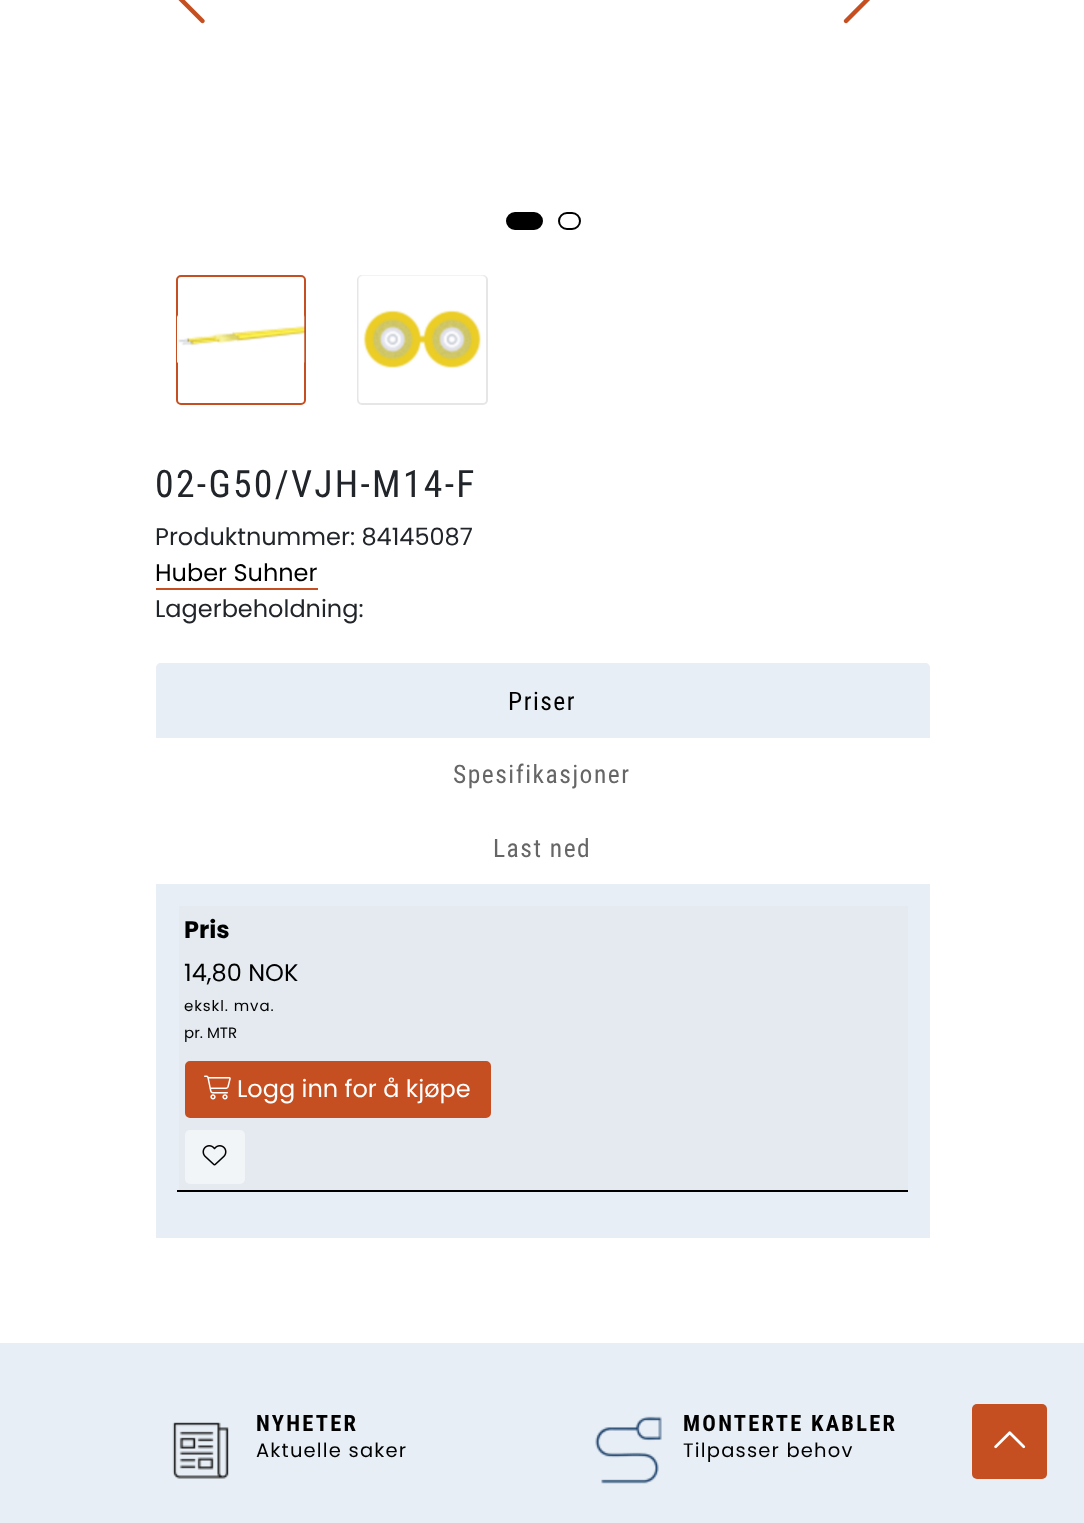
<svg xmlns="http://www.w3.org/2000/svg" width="1084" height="1523">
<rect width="100%" height="100%" fill="#fff"/>
<image x="178" y="0" width="27" height="24" href="media/1.png"/>
<image x="843" y="0" width="27" height="24" href="media/2.png"/>
<rect x="507" y="213" width="35" height="16" rx="8" fill="#000" stroke="#000" stroke-width="2"/>
<rect x="559" y="213" width="21" height="16" rx="8" fill="none" stroke="#000" stroke-width="2"/>
<rect x="177" y="276" width="128" height="128" rx="4" fill="none" stroke="#c54f20" stroke-width="2"/>
<image x="177" y="315" width="128" height="48" href="media/3.png"/>
<rect x="358" y="276" width="129" height="128" rx="4" fill="none" stroke="#e6e6e6" stroke-width="2"/>
<image x="358" y="275" width="128" height="128" href="media/4.png"/>
<text x="155" y="497" style="font-family:Roboto Condensed;font-size:37.75px;letter-spacing:2.25px;fill:#212529">02-G50/VJH-M14-F</text>
<text x="155" y="545" style="font-family:Poppins;font-size:24px;fill:#212529">Produktnummer: 84145087</text>
<text x="155" y="581" style="font-family:Poppins;font-size:24px;fill:#000">Huber Suhner</text>
<rect x="156" y="588" width="162" height="2" fill="#c54f20"/>
<text x="155" y="617" style="font-family:Poppins;font-size:24px;fill:#212529">Lagerbeholdning:</text>
<path d="M161 663h764c3 0 5 2 5 5v70h-774v-70c0-3 2-5 5-5z" fill="#e7eef5"/>
<text x="508" y="710" style="font-family:Roboto Condensed;font-size:25.5px;letter-spacing:1.5px;fill:#000">Priser</text>
<text x="453" y="783" style="font-family:Roboto Condensed;font-size:25.5px;letter-spacing:1.5px;fill:#666">Spesifikasjoner</text>
<text x="493" y="857" style="font-family:Roboto Condensed;font-size:25.5px;letter-spacing:1.5px;fill:#666">Last ned</text>
<rect x="156" y="884" width="774" height="354" fill="#e7eef5"/>
<rect x="177" y="1190" width="731" height="2" fill="#000"/>
<rect x="179" y="906" width="729" height="284" fill="#e4eaf0"/>
<text x="184" y="938" style="font-family:Poppins;font-size:24px;font-weight:bold;fill:#000">Pris</text>
<text x="184" y="981" style="font-family:Poppins;font-size:24px;fill:#000">14,80 NOK</text>
<text x="184" y="1011" style="font-family:Poppins;font-size:15px;letter-spacing:0.9px;fill:#000">ekskl. mva.</text>
<text x="184" y="1038" style="font-family:Poppins;font-size:15px;fill:#000">pr. MTR</text>
<rect x="186" y="1062" width="304" height="55" rx="4" fill="#c54f20" stroke="#c54f20" stroke-width="2"/>
<image x="204" y="1075" width="27" height="25" href="media/5.png"/>
<text x="237" y="1097" style="font-family:Poppins;font-size:24px;fill:#fff">Logg inn for å kjøpe</text>
<rect x="185" y="1130" width="60" height="54" rx="5" fill="#f2f5f8"/>
<image x="202" y="1145" width="25" height="21" href="media/6.png"/>
<rect y="1343" width="1084" height="180" fill="#e7eef5"/>
<rect x="972" y="1404" width="75" height="75" rx="5" fill="#c54f20"/>
<image x="994" y="1431" width="32" height="18" href="media/7.png"/>
<image x="172" y="1422" width="57" height="57" href="media/8.png"/>
<text x="256" y="1431" style="font-family:Roboto Condensed;font-size:22.5px;font-weight:bold;letter-spacing:2.25px;fill:#000">NYHETER</text>
<text x="256" y="1457" style="font-family:Poppins;font-size:19.5px;letter-spacing:1.2px;fill:#000">Aktuelle saker</text>
<image x="595" y="1416" width="67" height="68" href="media/9.png"/>
<text x="683" y="1431" style="font-family:Roboto Condensed;font-size:22.5px;font-weight:bold;letter-spacing:2.25px;fill:#000">MONTERTE KABLER</text>
<text x="683" y="1457" style="font-family:Poppins;font-size:19.5px;letter-spacing:1.2px;fill:#000">Tilpasser behov</text>
</svg>
